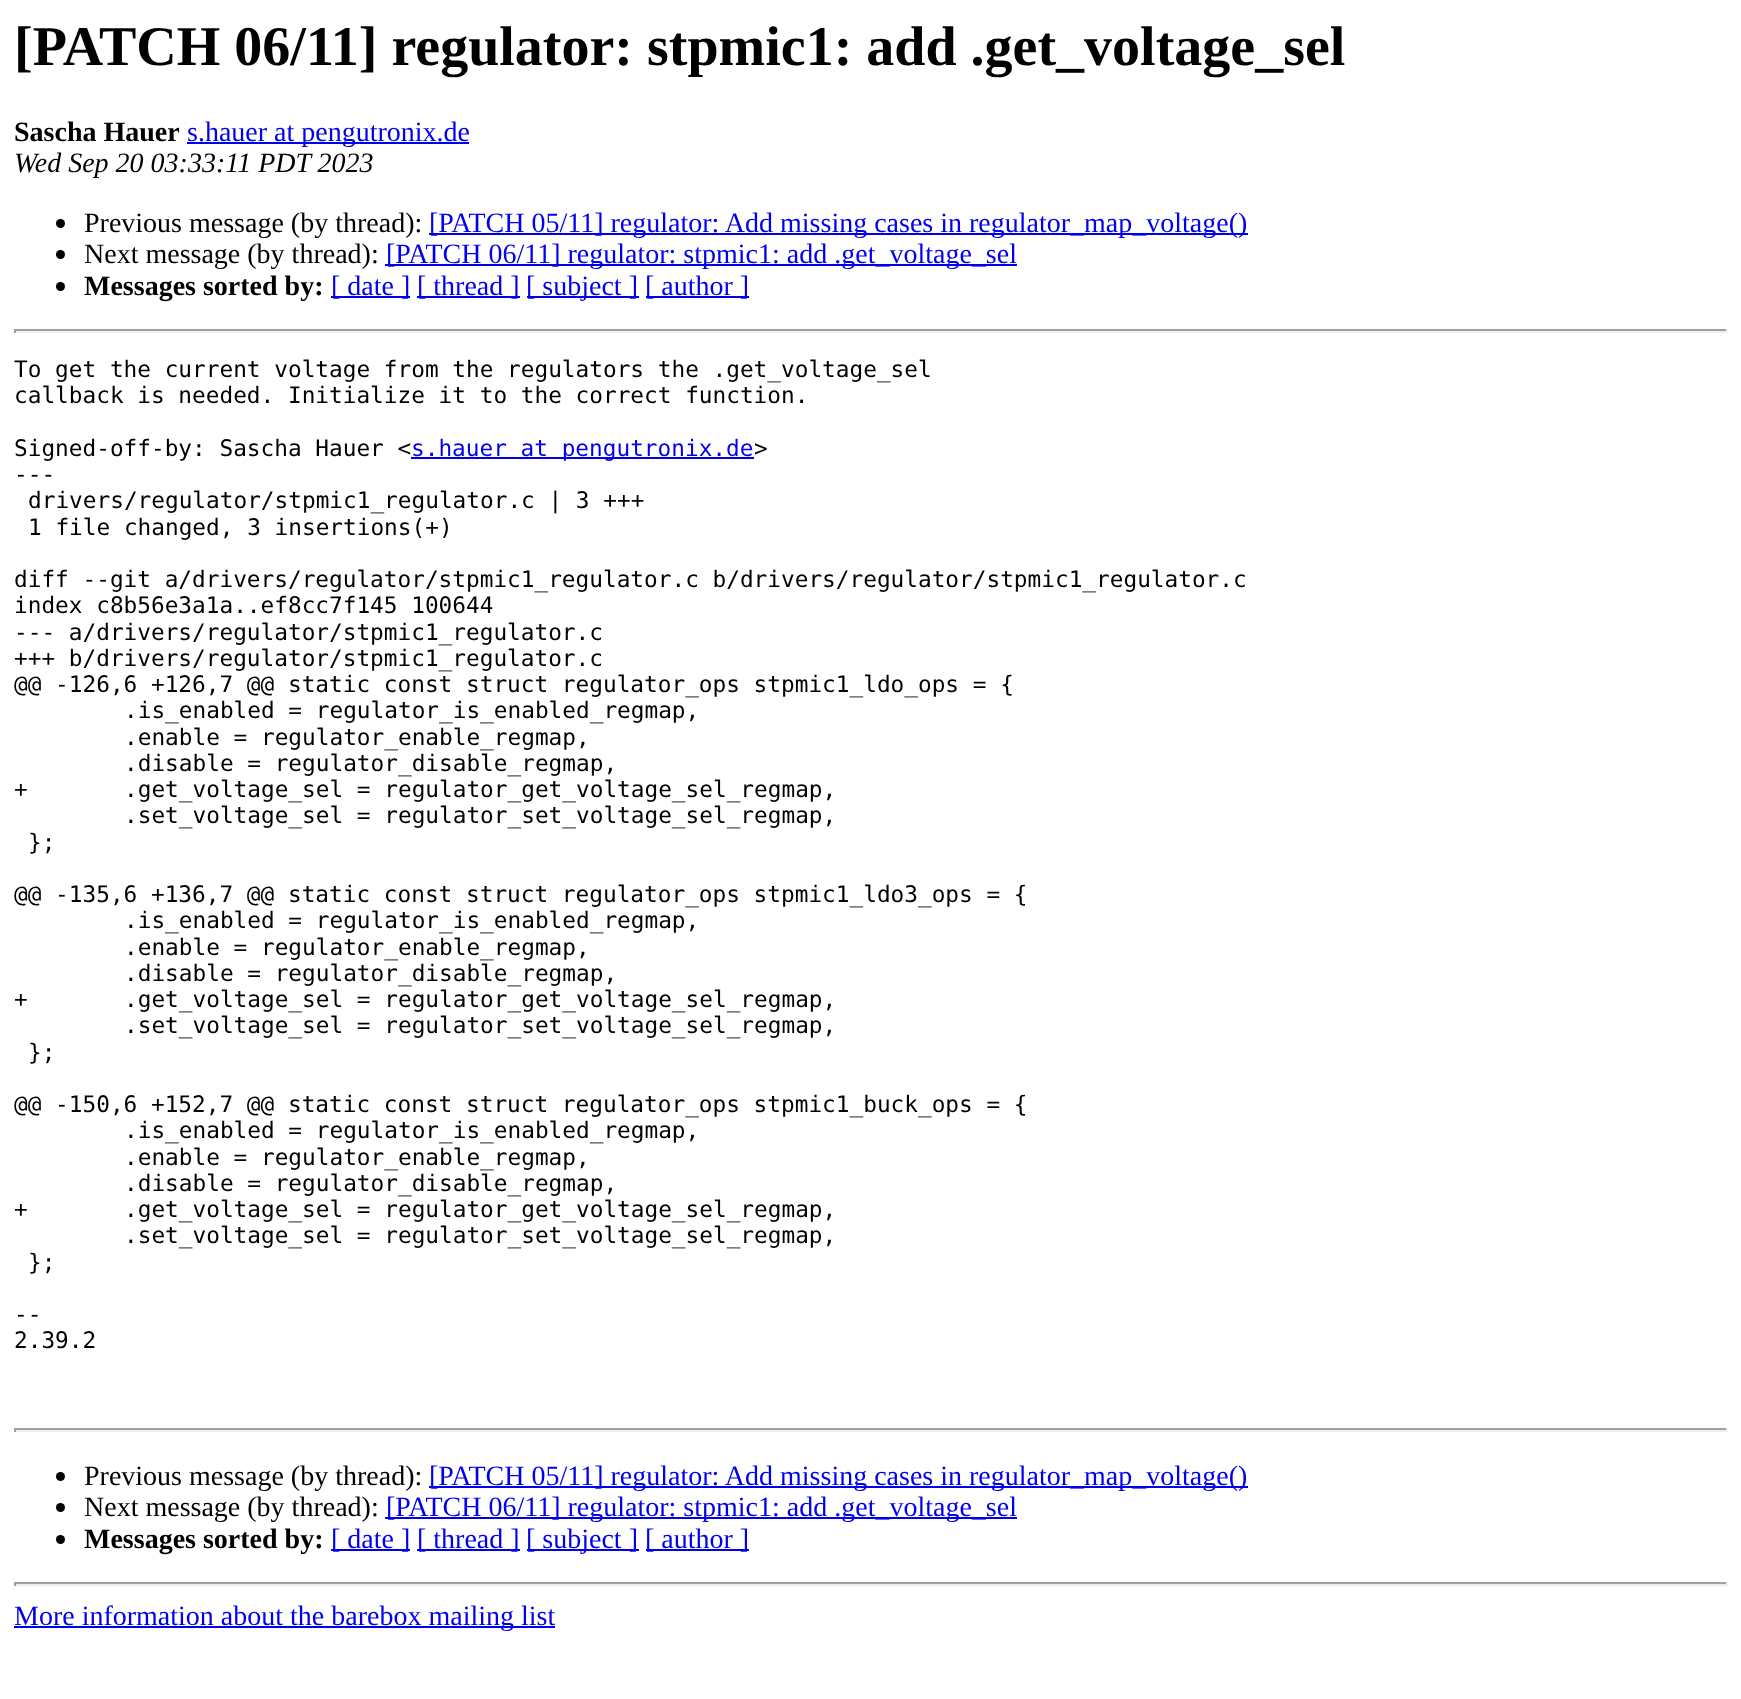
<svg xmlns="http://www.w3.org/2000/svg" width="1741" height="1699">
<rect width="100%" height="100%" fill="#fff"/>
<text x="14" y="65" style="font-family:Liberation Serif;font-size:56px;font-weight:bold;fill:#000">[PATCH 06/11] regulator: stpmic1: add .get_voltage_sel</text>
<text x="14" y="141" style="font-family:Liberation Serif;font-size:28px;font-weight:bold;fill:#000">Sascha Hauer</text>
<rect x="187" y="142" width="282" height="2" fill="#00e"/>
<text x="187" y="141" style="font-family:Liberation Serif;font-size:28px;fill:#00e">s.hauer at pengutronix.de</text>
<text x="14" y="172" style="font-family:Liberation Serif;font-size:28px;font-style:italic;fill:#000">Wed Sep 20 03:33:11 PDT 2023</text>
<circle cx="60.5" cy="223.5" r="4.5" fill="#000"/>
<text x="84" y="232" style="font-family:Liberation Serif;font-size:28px;fill:#000">Previous message (by thread):</text>
<rect x="429" y="233" width="819" height="2" fill="#00e"/>
<text x="429" y="232" style="font-family:Liberation Serif;font-size:28px;fill:#00e">[PATCH 05/11] regulator: Add missing cases in regulator_map_voltage()</text>
<circle cx="60.5" cy="254.5" r="4.5" fill="#000"/>
<text x="84" y="263" style="font-family:Liberation Serif;font-size:28px;fill:#000">Next message (by thread):</text>
<rect x="385" y="264" width="632" height="2" fill="#00e"/>
<text x="386" y="263" style="font-family:Liberation Serif;font-size:28px;fill:#00e">[PATCH 06/11] regulator: stpmic1: add .get_voltage_sel</text>
<circle cx="60.5" cy="286.5" r="4.5" fill="#000"/>
<text x="84" y="295" style="font-family:Liberation Serif;font-size:28px;font-weight:bold;fill:#000">Messages sorted by:</text>
<rect x="331" y="296" width="79" height="2" fill="#00e"/>
<text x="331" y="295" style="font-family:Liberation Serif;font-size:28px;fill:#00e">[ date ]</text>
<rect x="417" y="296" width="103" height="2" fill="#00e"/>
<text x="417" y="295" style="font-family:Liberation Serif;font-size:28px;fill:#00e">[ thread ]</text>
<rect x="527" y="296" width="112" height="2" fill="#00e"/>
<text x="526" y="295" style="font-family:Liberation Serif;font-size:28px;fill:#00e">[ subject ]</text>
<rect x="646" y="296" width="103" height="2" fill="#00e"/>
<text x="645" y="295" style="font-family:Liberation Serif;font-size:28px;fill:#00e">[ author ]</text>
<rect x="14" y="329" width="1713" height="2" fill="#9f9f9f"/>
<rect x="1726" y="329" width="2" height="4" fill="#eee"/>
<rect x="14" y="331" width="1713" height="2" fill="#eee"/>
<rect x="14" y="329" width="2" height="4" fill="#9f9f9f"/>
<text x="14" y="377" style="font-family:DejaVu Sans Mono;font-size:22.75px;fill:#000">To get the current voltage from the regulators the .get_voltage_sel</text>
<text x="14" y="403" style="font-family:DejaVu Sans Mono;font-size:22.75px;fill:#000">callback is needed. Initialize it to the correct function.</text>
<text x="14" y="456" style="font-family:DejaVu Sans Mono;font-size:22.75px;fill:#000">Signed-off-by: Sascha Hauer &lt;</text>
<rect x="411" y="457" width="343" height="2" fill="#00e"/>
<text x="411" y="456" style="font-family:DejaVu Sans Mono;font-size:22.75px;fill:#00e">s.hauer at pengutronix.de</text>
<text x="754" y="456" style="font-family:DejaVu Sans Mono;font-size:22.75px;fill:#000">&gt;</text>
<text x="14" y="482" style="font-family:DejaVu Sans Mono;font-size:22.75px;fill:#000">---</text>
<text x="28" y="508" style="font-family:DejaVu Sans Mono;font-size:22.75px;fill:#000">drivers/regulator/stpmic1_regulator.c | 3 +++</text>
<text x="28" y="535" style="font-family:DejaVu Sans Mono;font-size:22.75px;fill:#000">1 file changed, 3 insertions(+)</text>
<text x="14" y="587" style="font-family:DejaVu Sans Mono;font-size:22.75px;fill:#000">diff --git a/drivers/regulator/stpmic1_regulator.c b/drivers/regulator/stpmic1_regulator.c</text>
<text x="14" y="613" style="font-family:DejaVu Sans Mono;font-size:22.75px;fill:#000">index c8b56e3a1a..ef8cc7f145 100644</text>
<text x="14" y="640" style="font-family:DejaVu Sans Mono;font-size:22.75px;fill:#000">--- a/drivers/regulator/stpmic1_regulator.c</text>
<text x="14" y="666" style="font-family:DejaVu Sans Mono;font-size:22.75px;fill:#000">+++ b/drivers/regulator/stpmic1_regulator.c</text>
<text x="14" y="692" style="font-family:DejaVu Sans Mono;font-size:22.75px;fill:#000">@@ -126,6 +126,7 @@ static const struct regulator_ops stpmic1_ldo_ops = {</text>
<text x="124" y="718" style="font-family:DejaVu Sans Mono;font-size:22.75px;fill:#000">.is_enabled = regulator_is_enabled_regmap,</text>
<text x="124" y="745" style="font-family:DejaVu Sans Mono;font-size:22.75px;fill:#000">.enable = regulator_enable_regmap,</text>
<text x="124" y="771" style="font-family:DejaVu Sans Mono;font-size:22.75px;fill:#000">.disable = regulator_disable_regmap,</text>
<text x="14" y="797" style="font-family:DejaVu Sans Mono;font-size:22.75px;fill:#000">+</text>
<text x="124" y="797" style="font-family:DejaVu Sans Mono;font-size:22.75px;fill:#000">.get_voltage_sel = regulator_get_voltage_sel_regmap,</text>
<text x="124" y="823" style="font-family:DejaVu Sans Mono;font-size:22.75px;fill:#000">.set_voltage_sel = regulator_set_voltage_sel_regmap,</text>
<text x="28" y="850" style="font-family:DejaVu Sans Mono;font-size:22.75px;fill:#000">};</text>
<text x="14" y="902" style="font-family:DejaVu Sans Mono;font-size:22.75px;fill:#000">@@ -135,6 +136,7 @@ static const struct regulator_ops stpmic1_ldo3_ops = {</text>
<text x="124" y="928" style="font-family:DejaVu Sans Mono;font-size:22.75px;fill:#000">.is_enabled = regulator_is_enabled_regmap,</text>
<text x="124" y="955" style="font-family:DejaVu Sans Mono;font-size:22.75px;fill:#000">.enable = regulator_enable_regmap,</text>
<text x="124" y="981" style="font-family:DejaVu Sans Mono;font-size:22.75px;fill:#000">.disable = regulator_disable_regmap,</text>
<text x="14" y="1007" style="font-family:DejaVu Sans Mono;font-size:22.75px;fill:#000">+</text>
<text x="124" y="1007" style="font-family:DejaVu Sans Mono;font-size:22.75px;fill:#000">.get_voltage_sel = regulator_get_voltage_sel_regmap,</text>
<text x="124" y="1033" style="font-family:DejaVu Sans Mono;font-size:22.75px;fill:#000">.set_voltage_sel = regulator_set_voltage_sel_regmap,</text>
<text x="28" y="1060" style="font-family:DejaVu Sans Mono;font-size:22.75px;fill:#000">};</text>
<text x="14" y="1112" style="font-family:DejaVu Sans Mono;font-size:22.75px;fill:#000">@@ -150,6 +152,7 @@ static const struct regulator_ops stpmic1_buck_ops = {</text>
<text x="124" y="1138" style="font-family:DejaVu Sans Mono;font-size:22.75px;fill:#000">.is_enabled = regulator_is_enabled_regmap,</text>
<text x="124" y="1165" style="font-family:DejaVu Sans Mono;font-size:22.75px;fill:#000">.enable = regulator_enable_regmap,</text>
<text x="124" y="1191" style="font-family:DejaVu Sans Mono;font-size:22.75px;fill:#000">.disable = regulator_disable_regmap,</text>
<text x="14" y="1217" style="font-family:DejaVu Sans Mono;font-size:22.75px;fill:#000">+</text>
<text x="124" y="1217" style="font-family:DejaVu Sans Mono;font-size:22.75px;fill:#000">.get_voltage_sel = regulator_get_voltage_sel_regmap,</text>
<text x="124" y="1243" style="font-family:DejaVu Sans Mono;font-size:22.75px;fill:#000">.set_voltage_sel = regulator_set_voltage_sel_regmap,</text>
<text x="28" y="1270" style="font-family:DejaVu Sans Mono;font-size:22.75px;fill:#000">};</text>
<text x="14" y="1322" style="font-family:DejaVu Sans Mono;font-size:22.75px;fill:#000">--</text>
<text x="14" y="1348" style="font-family:DejaVu Sans Mono;font-size:22.75px;fill:#000">2.39.2</text>
<rect x="14" y="1428" width="1713" height="2" fill="#9f9f9f"/>
<rect x="1726" y="1428" width="2" height="4" fill="#eee"/>
<rect x="14" y="1430" width="1713" height="2" fill="#eee"/>
<rect x="14" y="1428" width="2" height="4" fill="#9f9f9f"/>
<circle cx="60.5" cy="1476.5" r="4.5" fill="#000"/>
<text x="84" y="1485" style="font-family:Liberation Serif;font-size:28px;fill:#000">Previous message (by thread):</text>
<rect x="429" y="1486" width="819" height="2" fill="#00e"/>
<text x="429" y="1485" style="font-family:Liberation Serif;font-size:28px;fill:#00e">[PATCH 05/11] regulator: Add missing cases in regulator_map_voltage()</text>
<circle cx="60.5" cy="1507.5" r="4.5" fill="#000"/>
<text x="84" y="1516" style="font-family:Liberation Serif;font-size:28px;fill:#000">Next message (by thread):</text>
<rect x="385" y="1517" width="632" height="2" fill="#00e"/>
<text x="386" y="1516" style="font-family:Liberation Serif;font-size:28px;fill:#00e">[PATCH 06/11] regulator: stpmic1: add .get_voltage_sel</text>
<circle cx="60.5" cy="1539.5" r="4.5" fill="#000"/>
<text x="84" y="1548" style="font-family:Liberation Serif;font-size:28px;font-weight:bold;fill:#000">Messages sorted by:</text>
<rect x="331" y="1549" width="79" height="2" fill="#00e"/>
<text x="331" y="1548" style="font-family:Liberation Serif;font-size:28px;fill:#00e">[ date ]</text>
<rect x="417" y="1549" width="103" height="2" fill="#00e"/>
<text x="417" y="1548" style="font-family:Liberation Serif;font-size:28px;fill:#00e">[ thread ]</text>
<rect x="527" y="1549" width="112" height="2" fill="#00e"/>
<text x="526" y="1548" style="font-family:Liberation Serif;font-size:28px;fill:#00e">[ subject ]</text>
<rect x="646" y="1549" width="103" height="2" fill="#00e"/>
<text x="645" y="1548" style="font-family:Liberation Serif;font-size:28px;fill:#00e">[ author ]</text>
<rect x="14" y="1582" width="1713" height="2" fill="#9f9f9f"/>
<rect x="1726" y="1582" width="2" height="4" fill="#eee"/>
<rect x="14" y="1584" width="1713" height="2" fill="#eee"/>
<rect x="14" y="1582" width="2" height="4" fill="#9f9f9f"/>
<rect x="14" y="1626" width="541" height="2" fill="#00e"/>
<text x="14" y="1625" style="font-family:Liberation Serif;font-size:28px;fill:#00e">More information about the barebox mailing list</text>
</svg>
